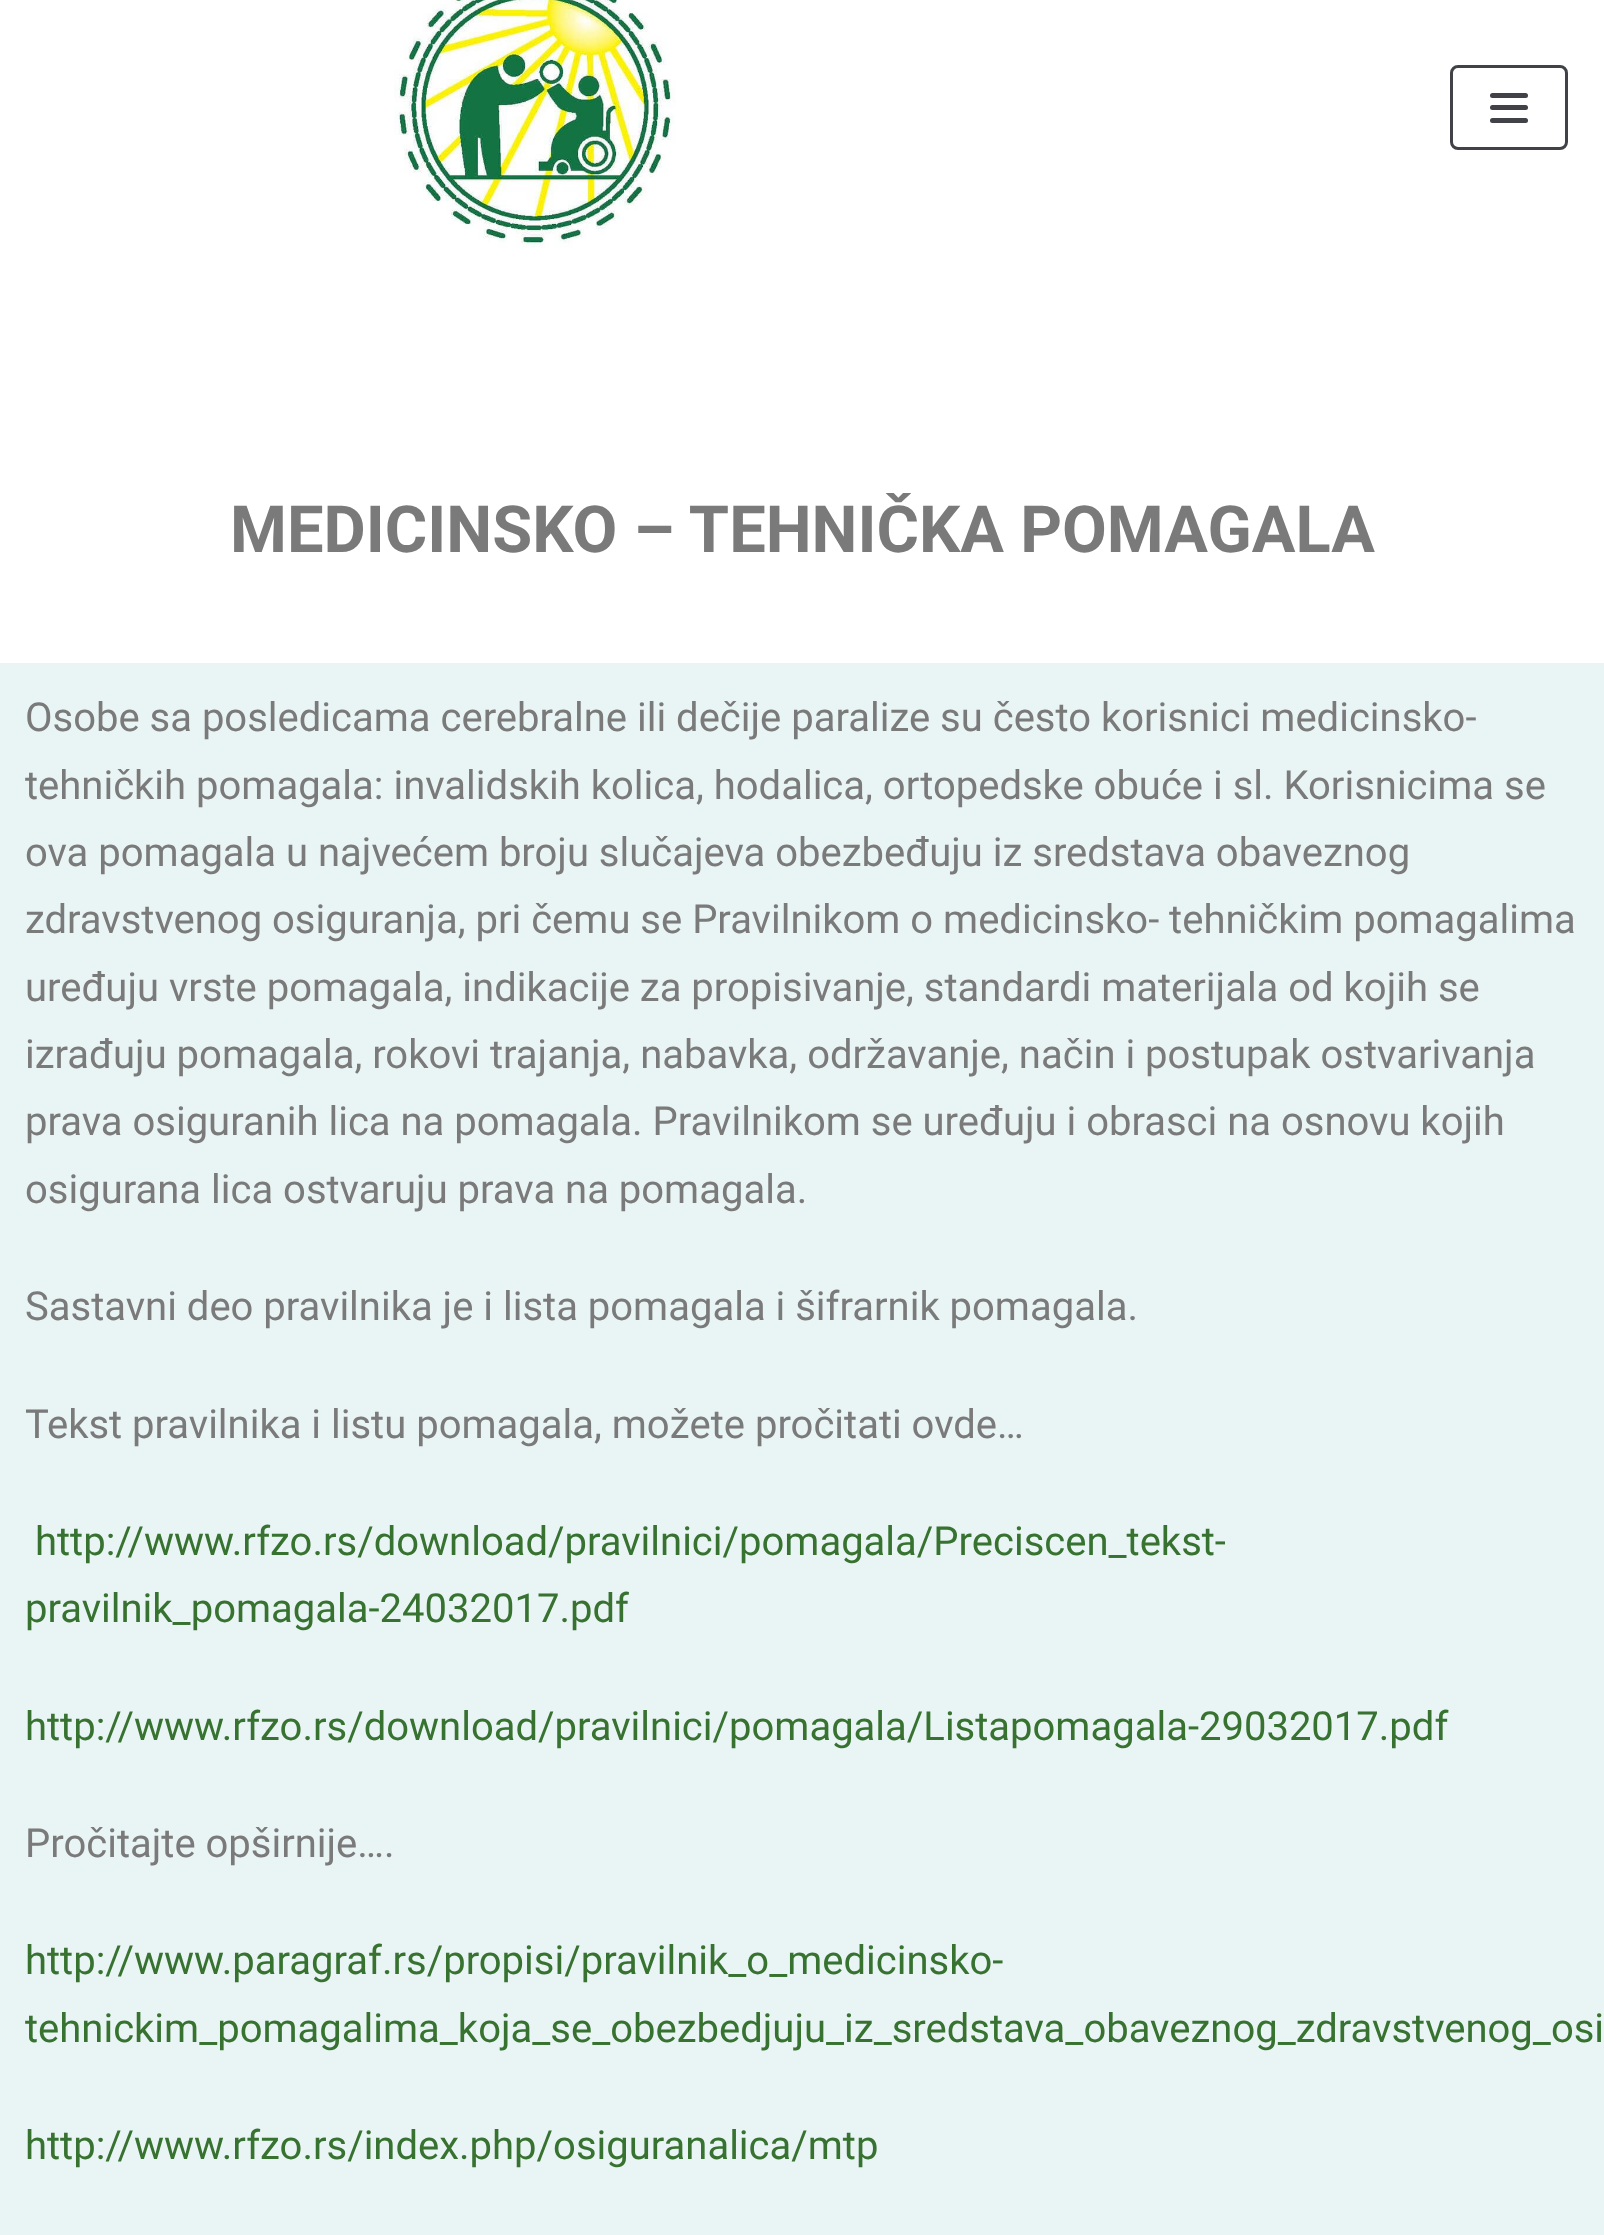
<svg xmlns="http://www.w3.org/2000/svg" width="1604" height="2235">
<rect width="100%" height="100%" fill="#fff"/>
<image x="394" y="0" width="282" height="248" href="media/1.png"/>
<rect x="1451.5" y="66.5" width="115" height="82" rx="6.5" fill="none" stroke="#404248" stroke-width="3"/>
<rect x="1490" y="93" width="38" height="5" rx="2.5" fill="#404248"/>
<rect x="1490" y="105" width="38" height="5" rx="2.5" fill="#404248"/>
<rect x="1490" y="118" width="38" height="5" rx="2.5" fill="#404248"/>
<text x="230" y="552" style="font-family:Roboto;font-size:65px;font-weight:bold;fill:#7a7a7a">MEDICINSKO – TEHNIČKA POMAGALA</text>
<rect y="663" width="1604" height="1572" fill="#e9f4f4"/>
<text x="25" y="731" style="font-family:Roboto;font-size:40px;fill:#7a7a7a">Osobe sa posledicama cerebralne ili dečije paralize su često korisnici medicinsko-</text>
<text x="25" y="799" style="font-family:Roboto;font-size:40px;fill:#7a7a7a">tehničkih pomagala: invalidskih kolica, hodalica, ortopedske obuće i sl. Korisnicima se</text>
<text x="25" y="866" style="font-family:Roboto;font-size:40px;fill:#7a7a7a">ova pomagala u najvećem broju slučajeva obezbeđuju iz sredstava obaveznog</text>
<text x="25" y="933" style="font-family:Roboto;font-size:40px;fill:#7a7a7a">zdravstvenog osiguranja, pri čemu se Pravilnikom o medicinsko- tehničkim pomagalima</text>
<text x="25" y="1001" style="font-family:Roboto;font-size:40px;fill:#7a7a7a">uređuju vrste pomagala, indikacije za propisivanje, standardi materijala od kojih se</text>
<text x="25" y="1068" style="font-family:Roboto;font-size:40px;fill:#7a7a7a">izrađuju pomagala, rokovi trajanja, nabavka, održavanje, način i postupak ostvarivanja</text>
<text x="25" y="1135" style="font-family:Roboto;font-size:40px;fill:#7a7a7a">prava osiguranih lica na pomagala. Pravilnikom se uređuju i obrasci na osnovu kojih</text>
<text x="25" y="1203" style="font-family:Roboto;font-size:40px;fill:#7a7a7a">osigurana lica ostvaruju prava na pomagala.</text>
<text x="25" y="1320" style="font-family:Roboto;font-size:40px;fill:#7a7a7a">Sastavni deo pravilnika je i lista pomagala i šifrarnik pomagala.</text>
<text x="25" y="1438" style="font-family:Roboto;font-size:40px;fill:#7a7a7a">Tekst pravilnika i listu pomagala, možete pročitati ovde…</text>
<text x="35" y="1555" style="font-family:Roboto;font-size:40px;fill:#377230">http://www.rfzo.rs/download/pravilnici/pomagala/Preciscen_tekst-</text>
<text x="25" y="1622" style="font-family:Roboto;font-size:40px;fill:#377230">pravilnik_pomagala-24032017.pdf</text>
<text x="25" y="1740" style="font-family:Roboto;font-size:40px;fill:#377230">http://www.rfzo.rs/download/pravilnici/pomagala/Listapomagala-29032017.pdf</text>
<text x="25" y="1857" style="font-family:Roboto;font-size:40px;fill:#7a7a7a">Pročitajte opširnije….</text>
<text x="25" y="1974" style="font-family:Roboto;font-size:40px;fill:#377230">http://www.paragraf.rs/propisi/pravilnik_o_medicinsko-</text>
<text x="25" y="2042" style="font-family:Roboto;font-size:40px;fill:#377230">tehnickim_pomagalima_koja_se_obezbedjuju_iz_sredstava_obaveznog_zdravstvenog_osi</text>
<text x="25" y="2159" style="font-family:Roboto;font-size:40px;fill:#377230">http://www.rfzo.rs/index.php/osiguranalica/mtp</text>
</svg>
